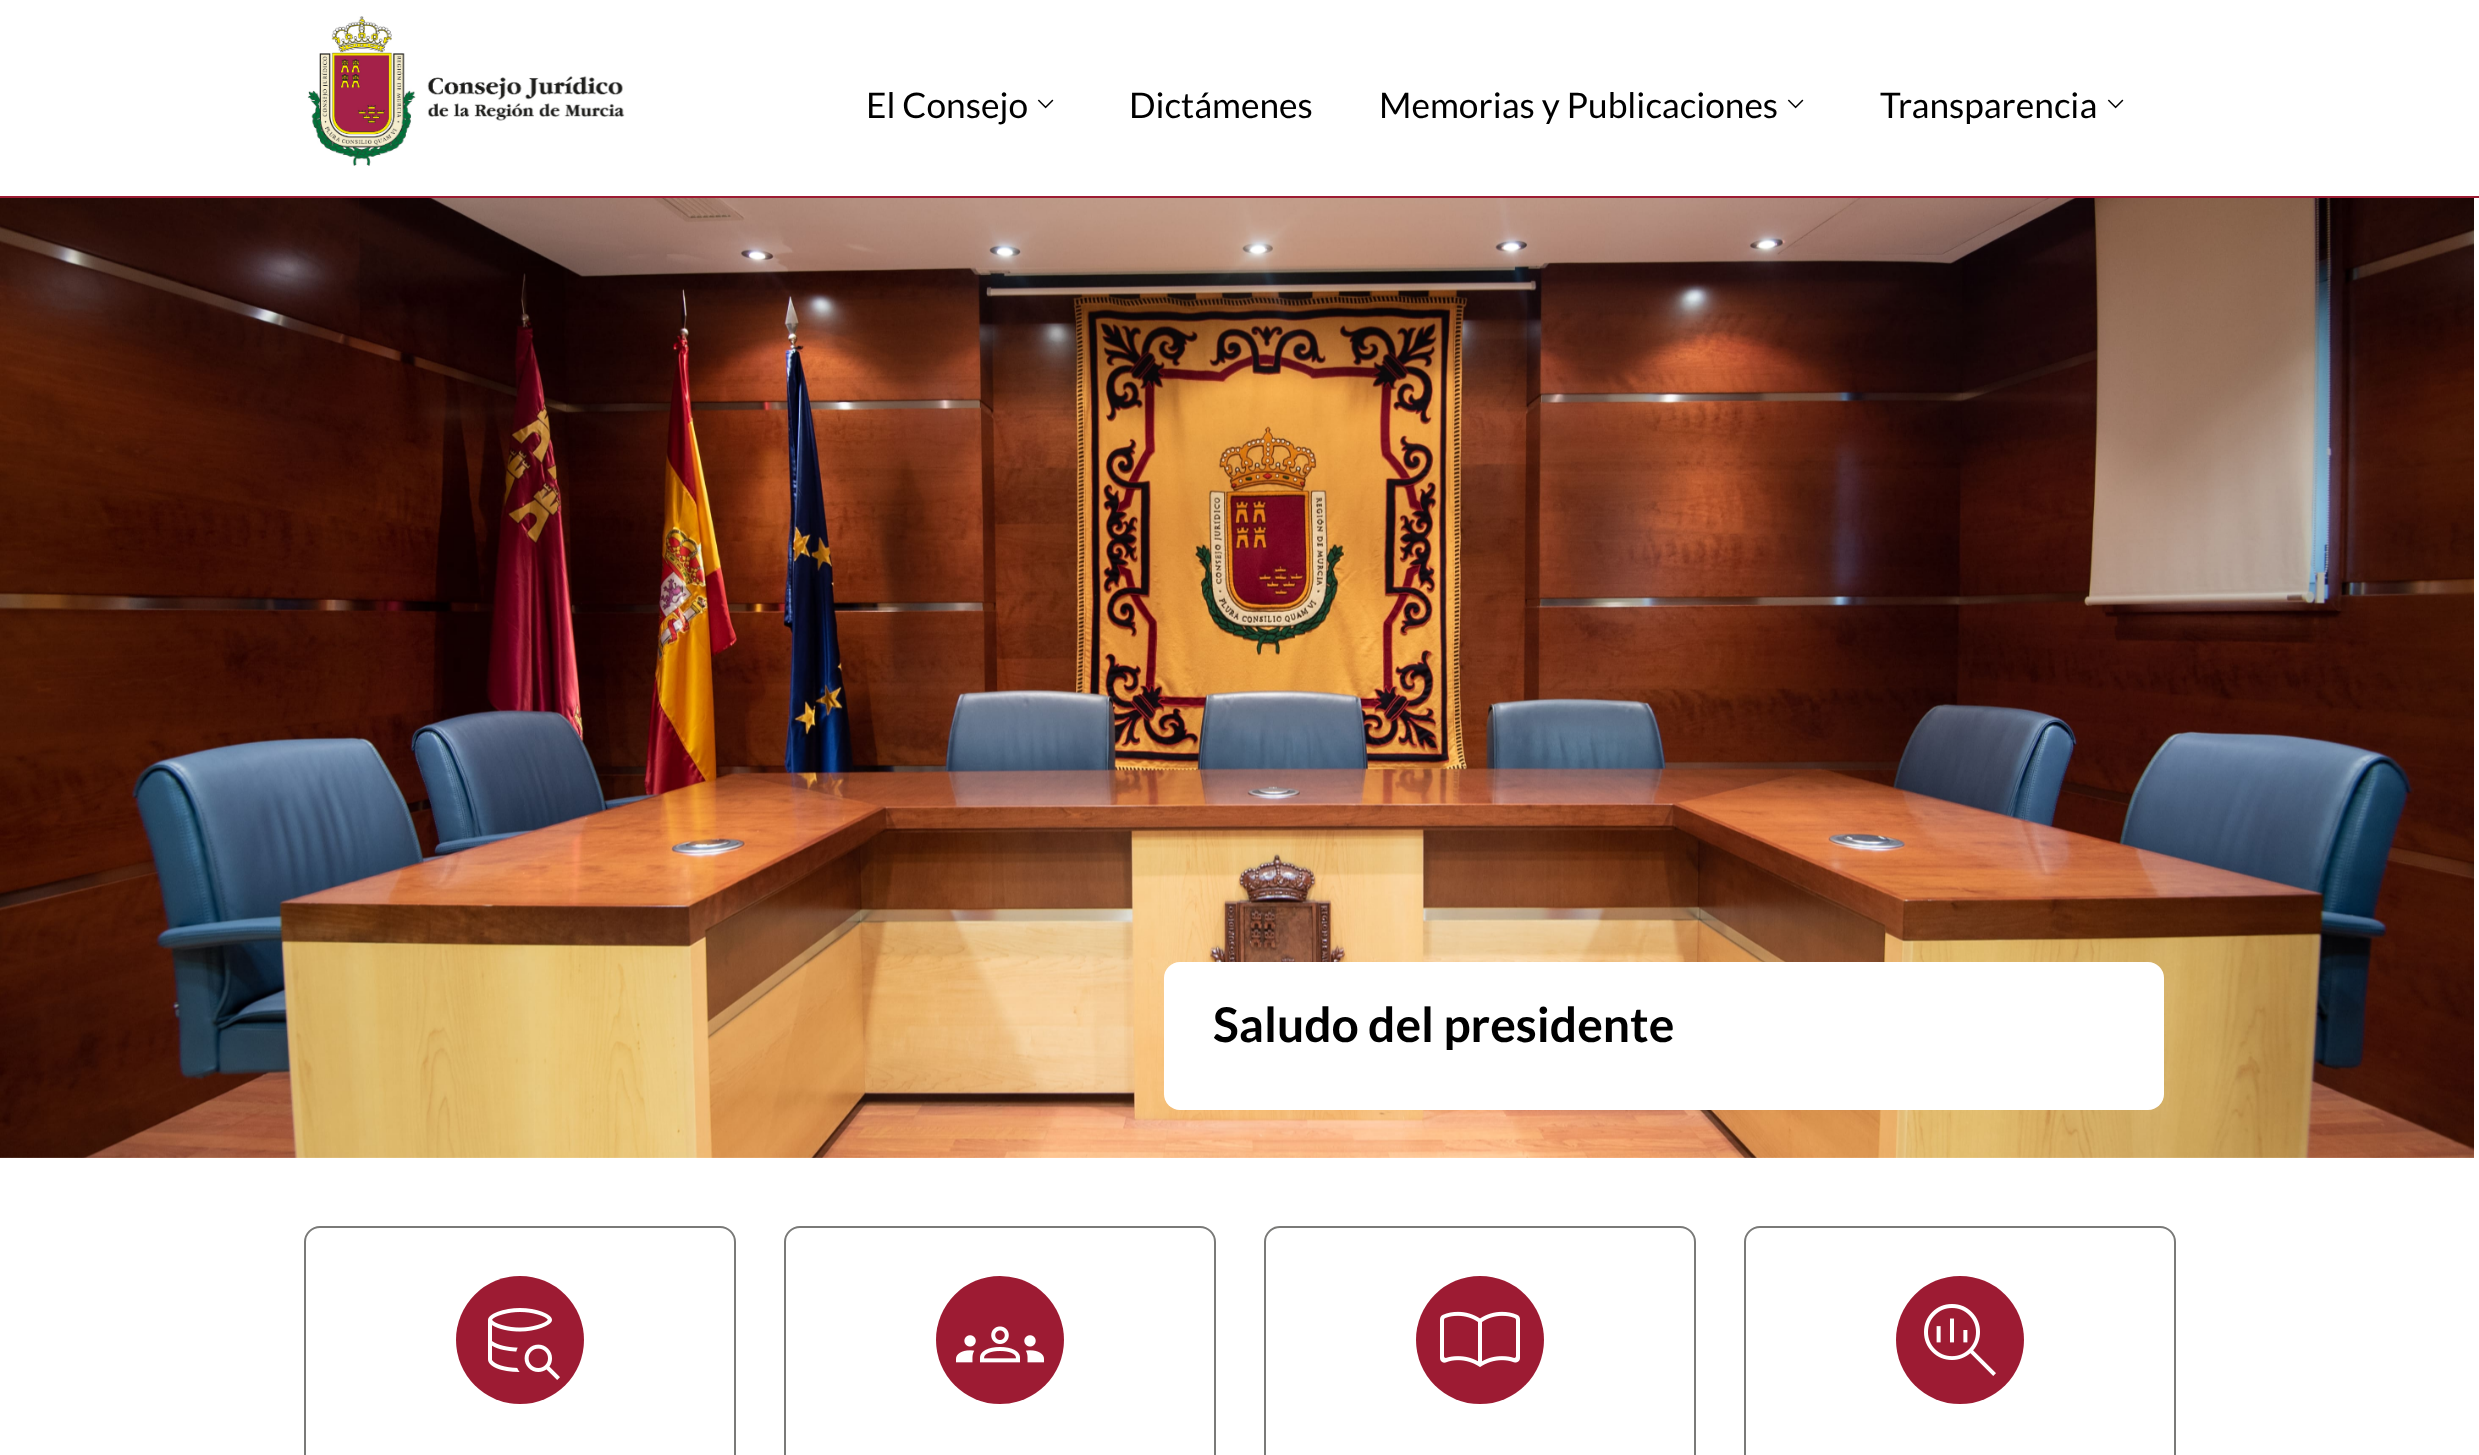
<svg xmlns="http://www.w3.org/2000/svg" width="2479" height="1455">
<rect width="100%" height="100%" fill="#fff"/>
<rect y="196" width="2479" height="2" fill="#9d1b33"/>
<image x="307" y="16" width="318" height="150" href="media/1.png"/>
<text x="866" y="118" style="font-family:Lato;font-size:35.25px;fill:#000">El Consejo</text>
<image x="1037" y="99" width="17" height="10" href="media/2.png"/>
<text x="1129" y="118" style="font-family:Lato;font-size:35.25px;fill:#000">Dictámenes</text>
<text x="1379" y="118" style="font-family:Lato;font-size:35.25px;fill:#000">Memorias y Publicaciones</text>
<image x="1787" y="99" width="17" height="10" href="media/2.png"/>
<text x="1880" y="118" style="font-family:Lato;font-size:35.25px;fill:#000">Transparencia</text>
<image x="2107" y="99" width="17" height="10" href="media/2.png"/>
<image x="0" y="198" width="2474" height="960" href="media/3.png"/>
<rect x="1164" y="962" width="1000" height="148" rx="16" fill="#fff"/>
<text x="1213" y="1042" style="font-family:Lato;font-size:48px;font-weight:bold;fill:#000">Saludo del presidente</text>
<rect x="305" y="1227" width="430" height="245" rx="15" fill="none" stroke="#7a7a78" stroke-width="2"/>
<circle cx="520" cy="1340" r="64" fill="#9d1b33"/>
<image x="488" y="1308" width="72" height="72" href="media/4.png"/>
<rect x="785" y="1227" width="430" height="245" rx="15" fill="none" stroke="#7a7a78" stroke-width="2"/>
<circle cx="1000" cy="1340" r="64" fill="#9d1b33"/>
<image x="956" y="1326" width="88" height="37" href="media/5.png"/>
<rect x="1265" y="1227" width="430" height="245" rx="15" fill="none" stroke="#7a7a78" stroke-width="2"/>
<circle cx="1480" cy="1340" r="64" fill="#9d1b33"/>
<image x="1440" y="1311" width="80" height="56" href="media/6.png"/>
<rect x="1745" y="1227" width="430" height="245" rx="15" fill="none" stroke="#7a7a78" stroke-width="2"/>
<circle cx="1960" cy="1340" r="64" fill="#9d1b33"/>
<image x="1924" y="1304" width="72" height="72" href="media/7.png"/>
</svg>
